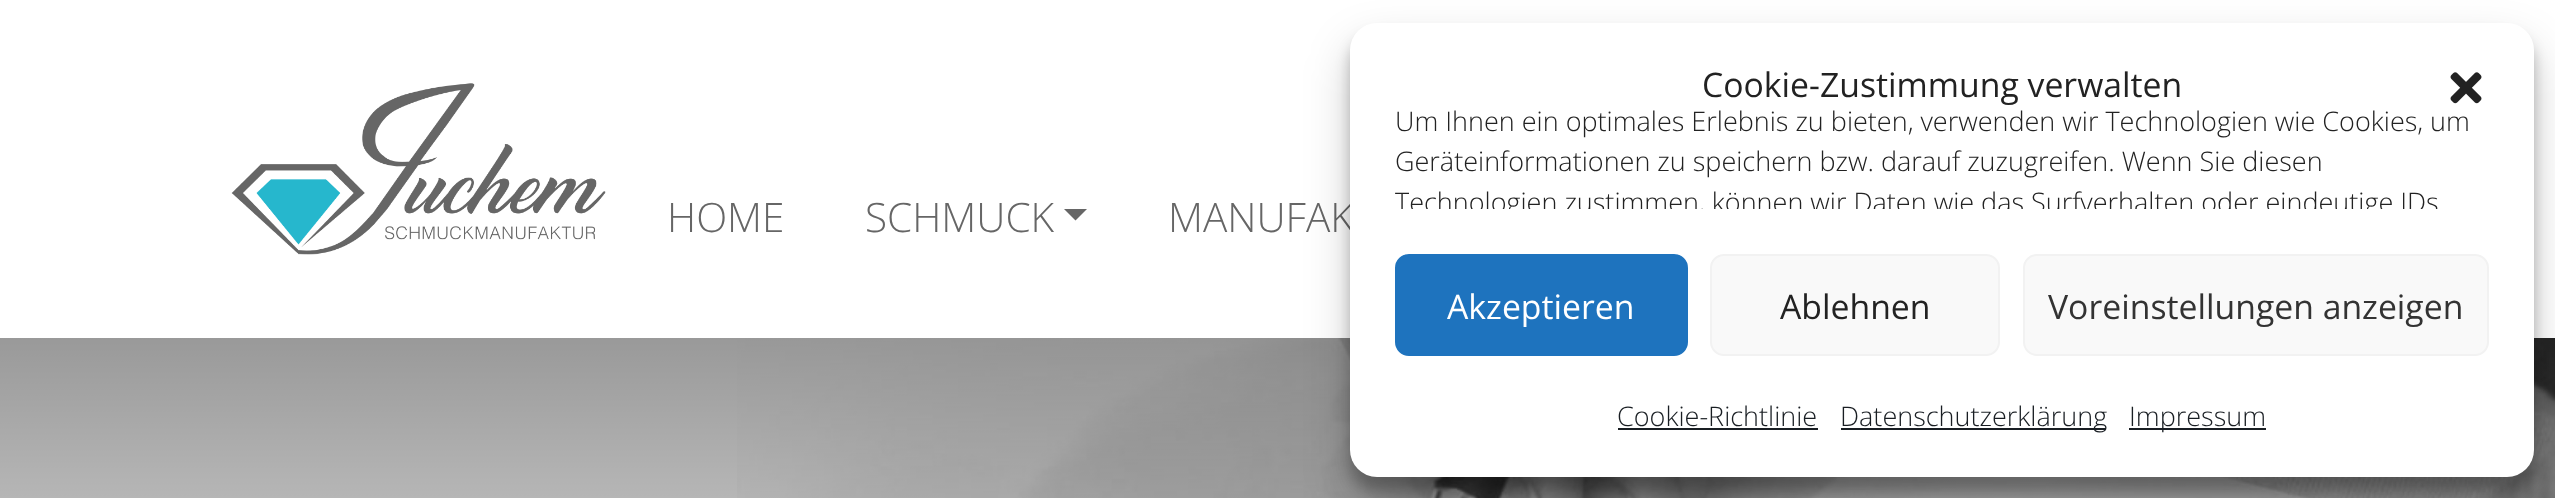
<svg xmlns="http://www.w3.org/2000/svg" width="2555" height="498">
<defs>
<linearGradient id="g1" gradientUnits="userSpaceOnUse" x1="1278" y1="337" x2="1278" y2="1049"><stop offset="0" stop-color="#000" stop-opacity="0.4"/><stop offset="0.8" stop-color="#000" stop-opacity="0"/></linearGradient>
<clipPath id="clip1"><rect x="1395" y="101" width="1094" height="108"/></clipPath>
</defs>
<rect width="100%" height="100%" fill="#fff"/>
<image x="231" y="83" width="375" height="172" href="media/1.png"/>
<text x="667" y="232" style="font-family:Open Sans;font-size:40.5px;font-weight:300;fill:#666">HOME</text>
<text x="865" y="232" style="font-family:Open Sans;font-size:40.5px;font-weight:300;fill:#666">SCHMUCK</text>
<path d="M1064 209h23l-11.5 11.5z" fill="#666"/>
<text x="1168" y="232" style="font-family:Open Sans;font-size:40.5px;font-weight:300;fill:#666">MANUFAK</text>
<image x="737" y="338" width="1818" height="160" href="media/2.png"/>
<rect y="338" width="2555" height="160" fill="url(#g1)"/>
<rect x="1350" y="36" width="1184" height="455" rx="27" fill="#0000003b" filter="blur(7px)"/>
<rect x="1350" y="45" width="1184" height="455" rx="27" fill="#00000030" filter="blur(22.5px)"/>
<rect x="1350" y="23" width="1184" height="454" rx="27" fill="#fff"/>
<text x="1702" y="97" style="font-family:Open Sans;font-size:33.75px;fill:#222">Cookie-Zustimmung verwalten</text>
<image x="2450" y="72" width="32" height="32" href="media/3.png"/>
<text x="1395" y="131" style="font-family:Open Sans;font-size:27px;font-weight:300;fill:#222">Um Ihnen ein optimales Erlebnis zu bieten, verwenden wir Technologien wie Cookies, um</text>
<text x="1395" y="171" style="font-family:Open Sans;font-size:27px;font-weight:300;fill:#222">Geräteinformationen zu speichern bzw. darauf zuzugreifen. Wenn Sie diesen</text>
<g clip-path="url(#clip1)">
<text x="1395" y="212" style="font-family:Open Sans;font-size:27px;font-weight:300;fill:#222">Technologien zustimmen, können wir Daten wie das Surfverhalten oder eindeutige IDs</text>
</g>
<rect x="1396" y="255" width="291" height="100" rx="13" fill="#1e73be" stroke="#1e73be" stroke-width="2"/>
<text x="1447" y="319" style="font-family:Open Sans;font-size:33.75px;fill:#fff">Akzeptieren</text>
<rect x="1711" y="255" width="288" height="100" rx="13" fill="#f9f9f9" stroke="#f2f2f2" stroke-width="2"/>
<text x="1780" y="319" style="font-family:Open Sans;font-size:33.75px;fill:#222">Ablehnen</text>
<rect x="2024" y="255" width="464" height="100" rx="13" fill="#f9f9f9" stroke="#f2f2f2" stroke-width="2"/>
<text x="2048" y="319" style="font-family:Open Sans;font-size:33.75px;fill:#333">Voreinstellungen anzeigen</text>
<text x="1617" y="426" style="font-family:Open Sans;font-size:27px;font-weight:300;fill:#191e23">Cookie-Richtlinie</text>
<rect x="1618" y="428" width="200" height="2" fill="#191e23"/>
<rect x="1841" y="428" width="265" height="2" fill="#191e23"/>
<text x="1840" y="426" style="font-family:Open Sans;font-size:27px;font-weight:300;fill:#191e23">Datenschutzerklärung</text>
<rect x="2129" y="428" width="137" height="2" fill="#191e23"/>
<text x="2129" y="426" style="font-family:Open Sans;font-size:27px;font-weight:300;fill:#191e23">Impressum</text>
</svg>
